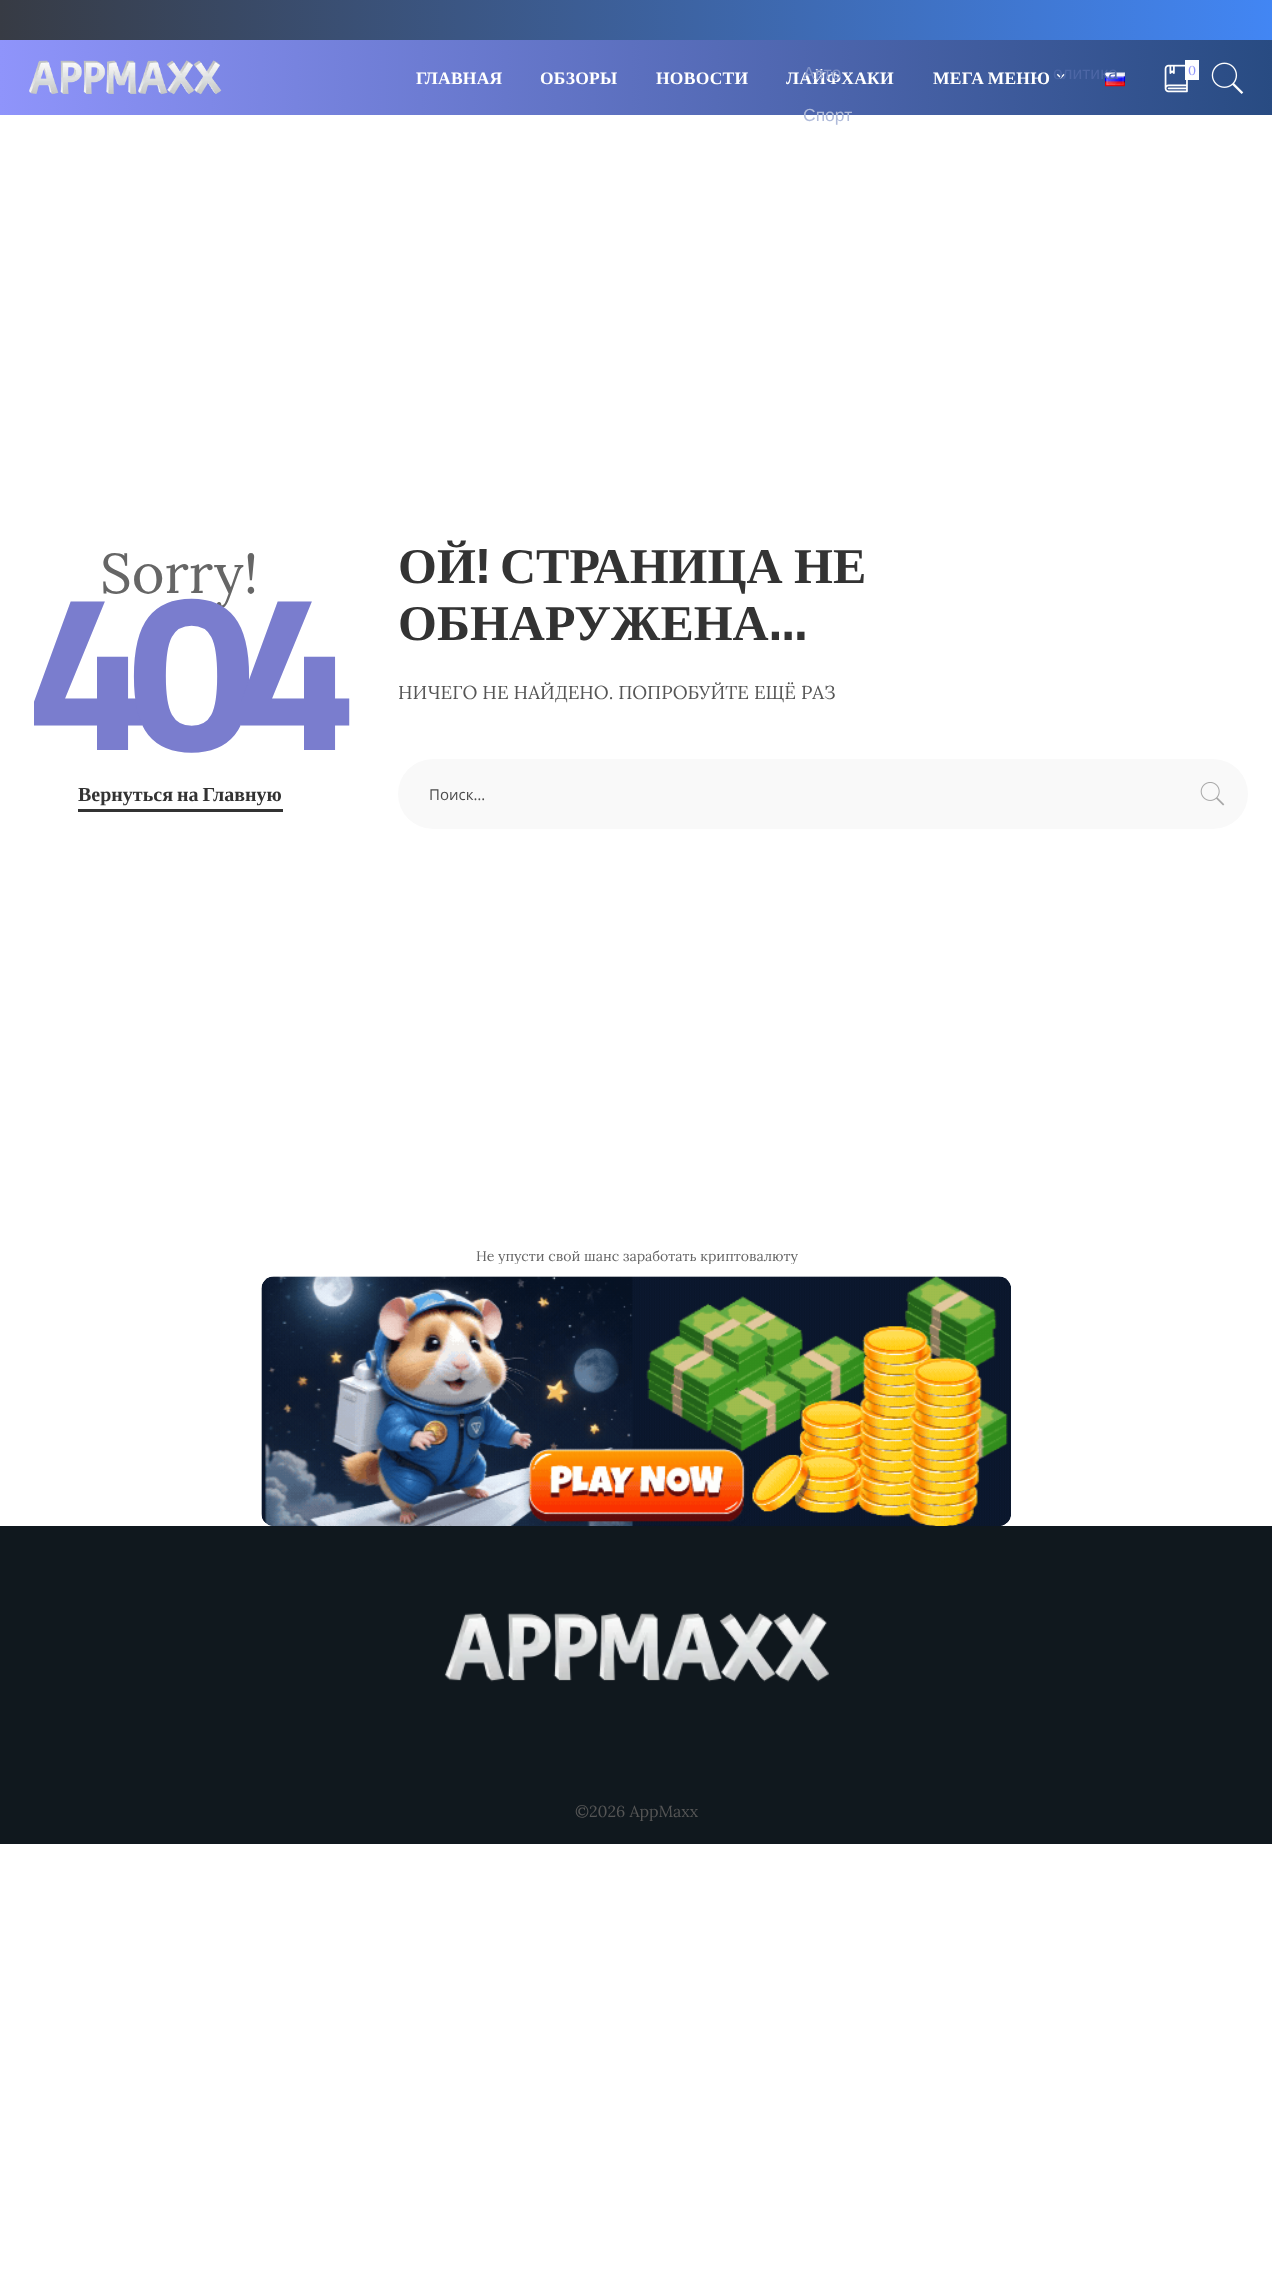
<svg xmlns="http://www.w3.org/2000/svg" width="1272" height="2269">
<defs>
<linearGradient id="g1" gradientUnits="userSpaceOnUse" x1="0" y1="20" x2="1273" y2="20"><stop offset="0" stop-color="#373b44"/><stop offset="1" stop-color="#4286f4"/></linearGradient>
<linearGradient id="g2" gradientUnits="userSpaceOnUse" x1="0" y1="78" x2="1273" y2="77"><stop offset="0" stop-color="#8f94fb"/><stop offset="1" stop-color="#284b82"/></linearGradient>
<clipPath id="clip1"><rect y="1250" width="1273" height="14"/></clipPath>
</defs>
<rect width="100%" height="100%" fill="#fff"/>
<rect width="1272" height="40" fill="url(#g1)"/>
<rect y="40" width="1272" height="75" fill="url(#g2)"/>
<image x="29" y="60" width="193" height="35" href="media/1.png"/>
<text x="416" y="84" style="font-family:Liberation Serif;font-size:17.5px;font-weight:bold;letter-spacing:0.25px;fill:#fff">ГЛАВНАЯ</text>
<text x="540" y="84" style="font-family:Liberation Serif;font-size:17.5px;font-weight:bold;letter-spacing:0.25px;fill:#fff">ОБЗОРЫ</text>
<text x="656" y="84" style="font-family:Liberation Serif;font-size:17.5px;font-weight:bold;letter-spacing:0.25px;fill:#fff">НОВОСТИ</text>
<text x="786" y="84" style="font-family:Liberation Serif;font-size:17.5px;font-weight:bold;letter-spacing:0.25px;fill:#fff">ЛАЙФХАКИ</text>
<text x="933" y="84" word-spacing="-1" style="font-family:Liberation Serif;font-size:17.5px;font-weight:bold;letter-spacing:0.25px;fill:#fff">МЕГА МЕНЮ</text>
<image x="1056" y="73" width="9" height="6" href="media/2.png"/>
<image x="1105" y="72" width="20" height="15" href="media/3.png"/>
<image x="1164" y="64" width="24" height="29" href="media/4.png"/>
<rect x="1185" y="60" width="14" height="20" fill="#fff"/>
<text x="1188" y="75" style="font-family:Lora;font-size:13px;fill:#8f94fb">0</text>
<image x="1211" y="62" width="33" height="32" href="media/5.png"/>
<text x="803" y="79" style="font-family:Liberation Sans;font-size:17.5px;fill:#8092c5">Авто</text>
<text x="803" y="121" style="font-family:Liberation Sans;font-size:17.5px;fill:#afbad9">Спорт</text>
<text x="1053" y="79" style="font-family:Liberation Sans;font-size:17.5px;fill:#4c66a5">олитика</text>
<text x="100" y="593" style="font-family:Lora;font-size:56px;fill:#666">Sorry!</text>
<text x="25" y="750" style="font-family:Titillium Web;font-size:225px;font-weight:bold;letter-spacing:-22.5px;fill:#7a7dce">404</text>
<rect x="78" y="809" width="205" height="3" fill="#333"/>
<text x="78" y="801" word-spacing="-1" style="font-family:Liberation Serif;font-size:20px;font-weight:bold;fill:#333">Вернуться на Главную</text>
<text x="398" y="583" style="font-family:Liberation Serif;font-size:50px;font-weight:bold;fill:#333">ОЙ</text>
<text x="476" y="583" style="font-family:Titillium Web;font-size:50px;font-weight:bold;fill:#333">!</text>
<text x="500" y="583" word-spacing="-1" style="font-family:Liberation Serif;font-size:50px;font-weight:bold;fill:#333">СТРАНИЦА НЕ</text>
<text x="398" y="640" style="font-family:Liberation Serif;font-size:50px;font-weight:bold;fill:#333">ОБНАРУЖЕНА</text>
<text x="769" y="640" style="font-family:Titillium Web;font-size:50px;font-weight:bold;fill:#333">...</text>
<text x="398" y="699" style="font-family:Lora;font-size:18.75px;fill:#555">НИЧЕГО НЕ НАЙДЕНО. ПОПРОБУЙТЕ ЕЩЁ РАЗ</text>
<rect x="398" y="759" width="850" height="70" rx="35" fill="#f9f9f9"/>
<text x="429" y="800" style="font-family:Open Sans;font-size:15px;fill:#4b4b4b">Поиск…</text>
<image x="1200" y="782" width="25" height="24" href="media/6.png"/>
<g clip-path="url(#clip1)">
<text x="476" y="1261" style="font-family:Lora;font-size:14.1px;fill:#666">Не упусти свой шанс заработать криптовалюту</text>
</g>
<image x="261" y="1276" width="750" height="250" href="media/7.png"/>
<rect y="1526" width="1272" height="318" fill="#10181e"/>
<image x="444" y="1612" width="385" height="70" href="media/8.png"/>
<text x="575" y="1817" style="font-family:Lora;font-size:16px;fill:#555">©2026 AppMaxx</text>
</svg>
